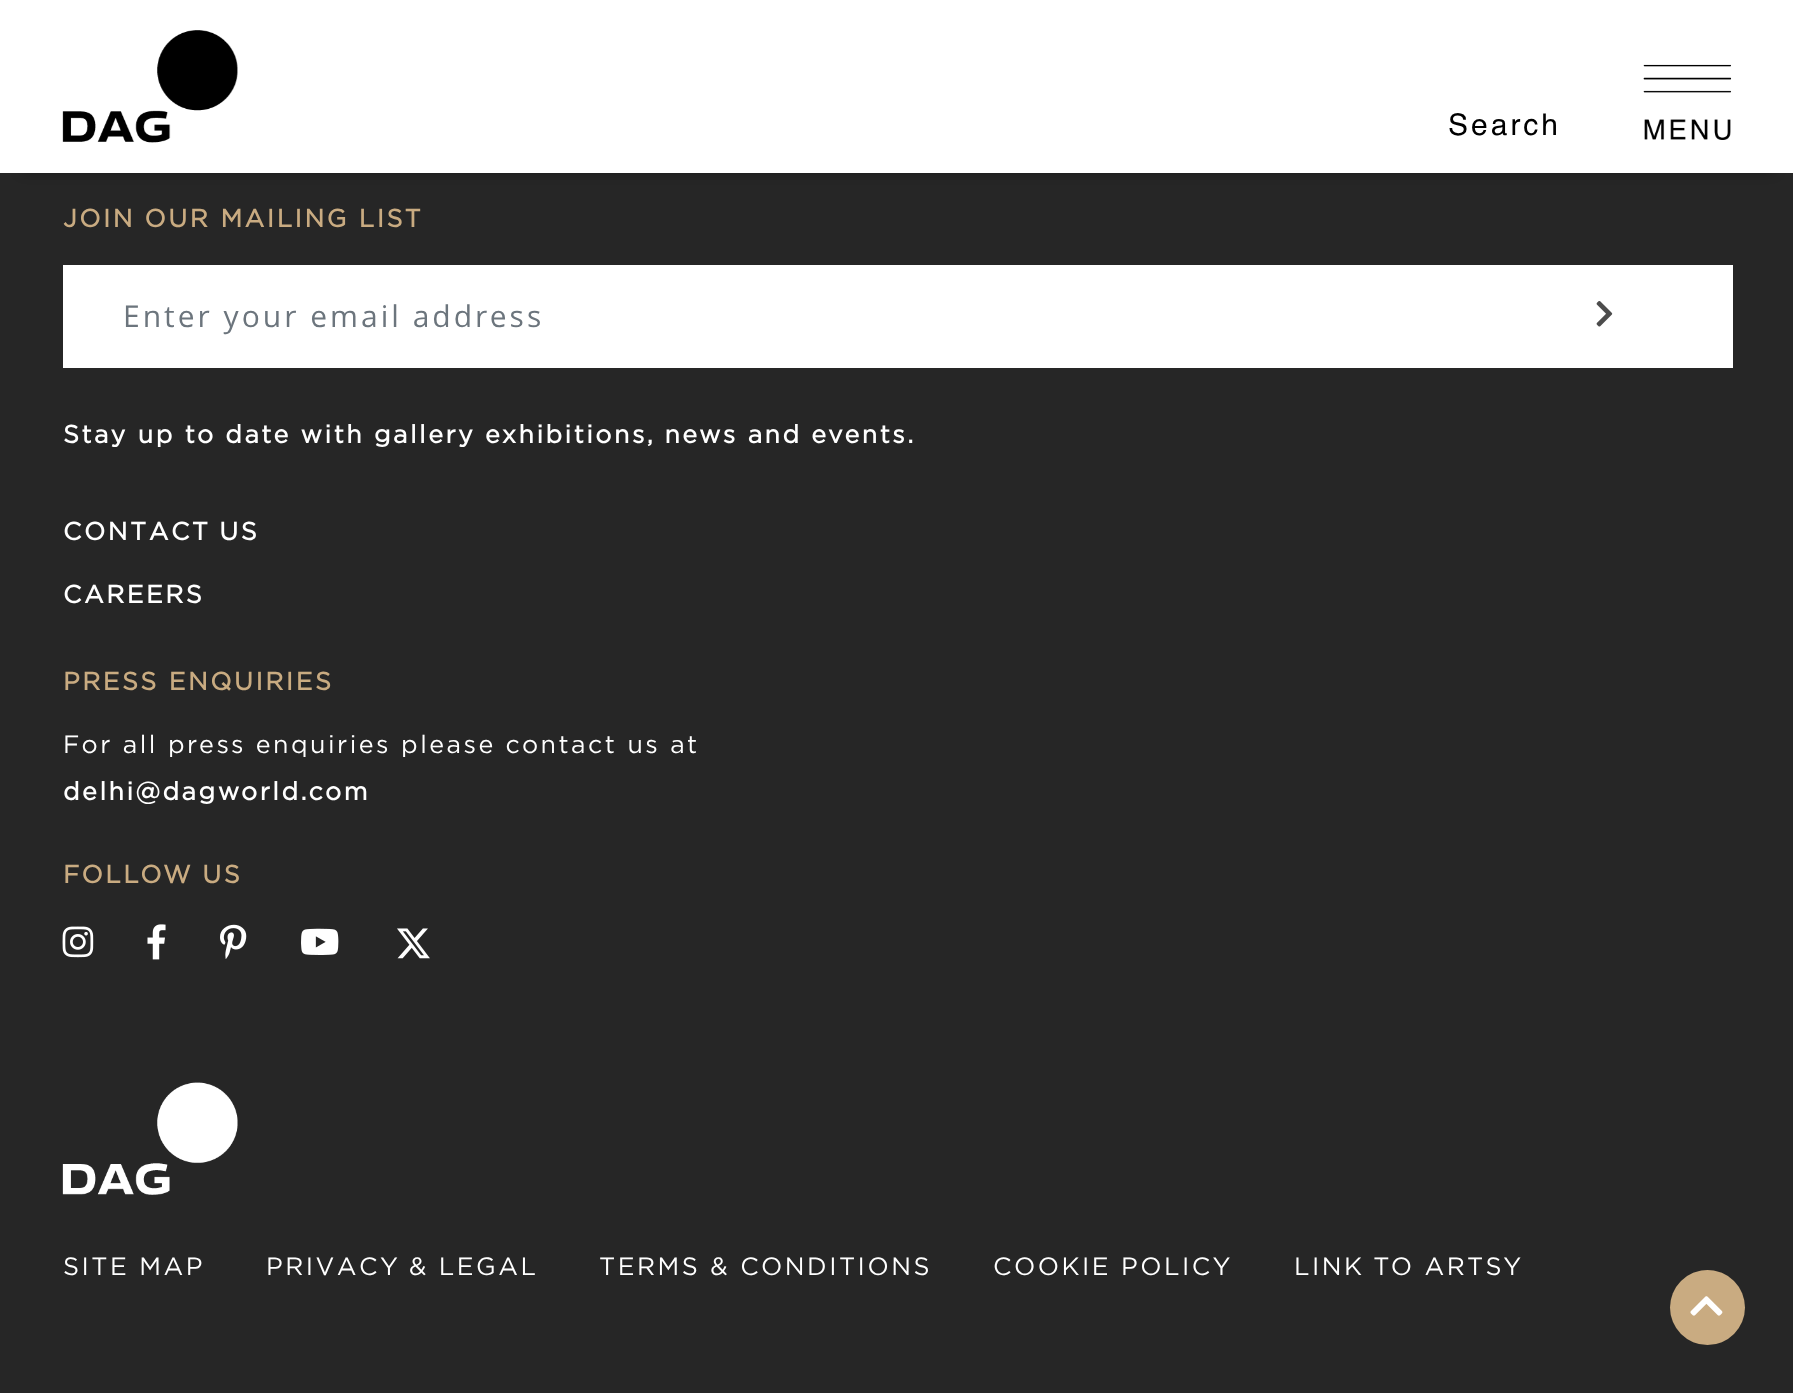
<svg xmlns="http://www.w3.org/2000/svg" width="1793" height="1393">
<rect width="100%" height="100%" fill="#262626"/>
<rect x="23" y="43" width="1750" height="127" fill="#00000080" filter="blur(6.5px)"/>
<rect width="1793" height="173" fill="#fff"/>
<image x="62" y="30" width="176" height="113" href="media/1.png"/>
<text x="1448" y="135" style="font-family:Helvetica;font-size:30px;letter-spacing:3px;fill:#000">Search</text>
<image x="1643" y="64" width="89" height="76" href="media/2.png"/>
<text x="63" y="227" style="font-family:Gotham;font-size:25px;font-weight:bold;letter-spacing:2.5px;fill:#c9ab81">JOIN OUR MAILING LIST</text>
<rect x="63" y="265" width="1670" height="103" fill="#fff"/>
<text x="123" y="327" style="font-family:Open Sans;font-size:30px;letter-spacing:3px;fill:#6c757d">Enter your email address</text>
<image x="1596" y="301" width="17" height="26" href="media/3.png"/>
<text x="63" y="443" style="font-family:Gotham;font-size:25px;font-weight:bold;letter-spacing:2.5px;fill:#fff">Stay up to date with gallery exhibitions, news and events.</text>
<text x="63" y="540" style="font-family:Gotham;font-size:25px;font-weight:bold;letter-spacing:2.5px;fill:#fff">CONTACT US</text>
<text x="63" y="603" style="font-family:Gotham;font-size:25px;font-weight:bold;letter-spacing:2.5px;fill:#fff">CAREERS</text>
<text x="63" y="690" style="font-family:Gotham;font-size:25px;font-weight:bold;letter-spacing:2.5px;fill:#c9ab81">PRESS ENQUIRIES</text>
<text x="63" y="753" style="font-family:Gotham;font-size:25px;letter-spacing:2.5px;fill:#fff">For all press enquiries please contact us at</text>
<text x="63" y="800" style="font-family:Gotham;font-size:25px;font-weight:bold;letter-spacing:2.5px;fill:#fff">delhi@dagworld.com</text>
<text x="63" y="883" style="font-family:Gotham;font-size:25px;font-weight:bold;letter-spacing:2.5px;fill:#c9ab81">FOLLOW US</text>
<image x="62" y="926" width="32" height="32" href="media/4.png"/>
<image x="147" y="924" width="19" height="36" href="media/5.png"/>
<image x="220" y="924" width="27" height="35" href="media/6.png"/>
<image x="301" y="928" width="38" height="27" href="media/7.png"/>
<image x="397" y="928" width="33" height="31" href="media/8.png"/>
<image x="62" y="1082" width="176" height="113" href="media/9.png"/>
<text x="63" y="1275" style="font-family:Gotham;font-size:25px;letter-spacing:2.5px;fill:#fff">SITE MAP</text>
<text x="266" y="1275" style="font-family:Gotham;font-size:25px;letter-spacing:2.5px;fill:#fff">PRIVACY &amp; LEGAL</text>
<text x="599" y="1275" style="font-family:Gotham;font-size:25px;letter-spacing:2.5px;fill:#fff">TERMS &amp; CONDITIONS</text>
<text x="993" y="1275" style="font-family:Gotham;font-size:25px;letter-spacing:2.5px;fill:#fff">COOKIE POLICY</text>
<text x="1294" y="1275" style="font-family:Gotham;font-size:25px;letter-spacing:2.5px;fill:#fff">LINK TO ARTSY</text>
<circle cx="1707.5" cy="1307.5" r="37.5" fill="#c9ab81"/>
<image x="1690" y="1296" width="33" height="20" href="media/10.png"/>
</svg>
